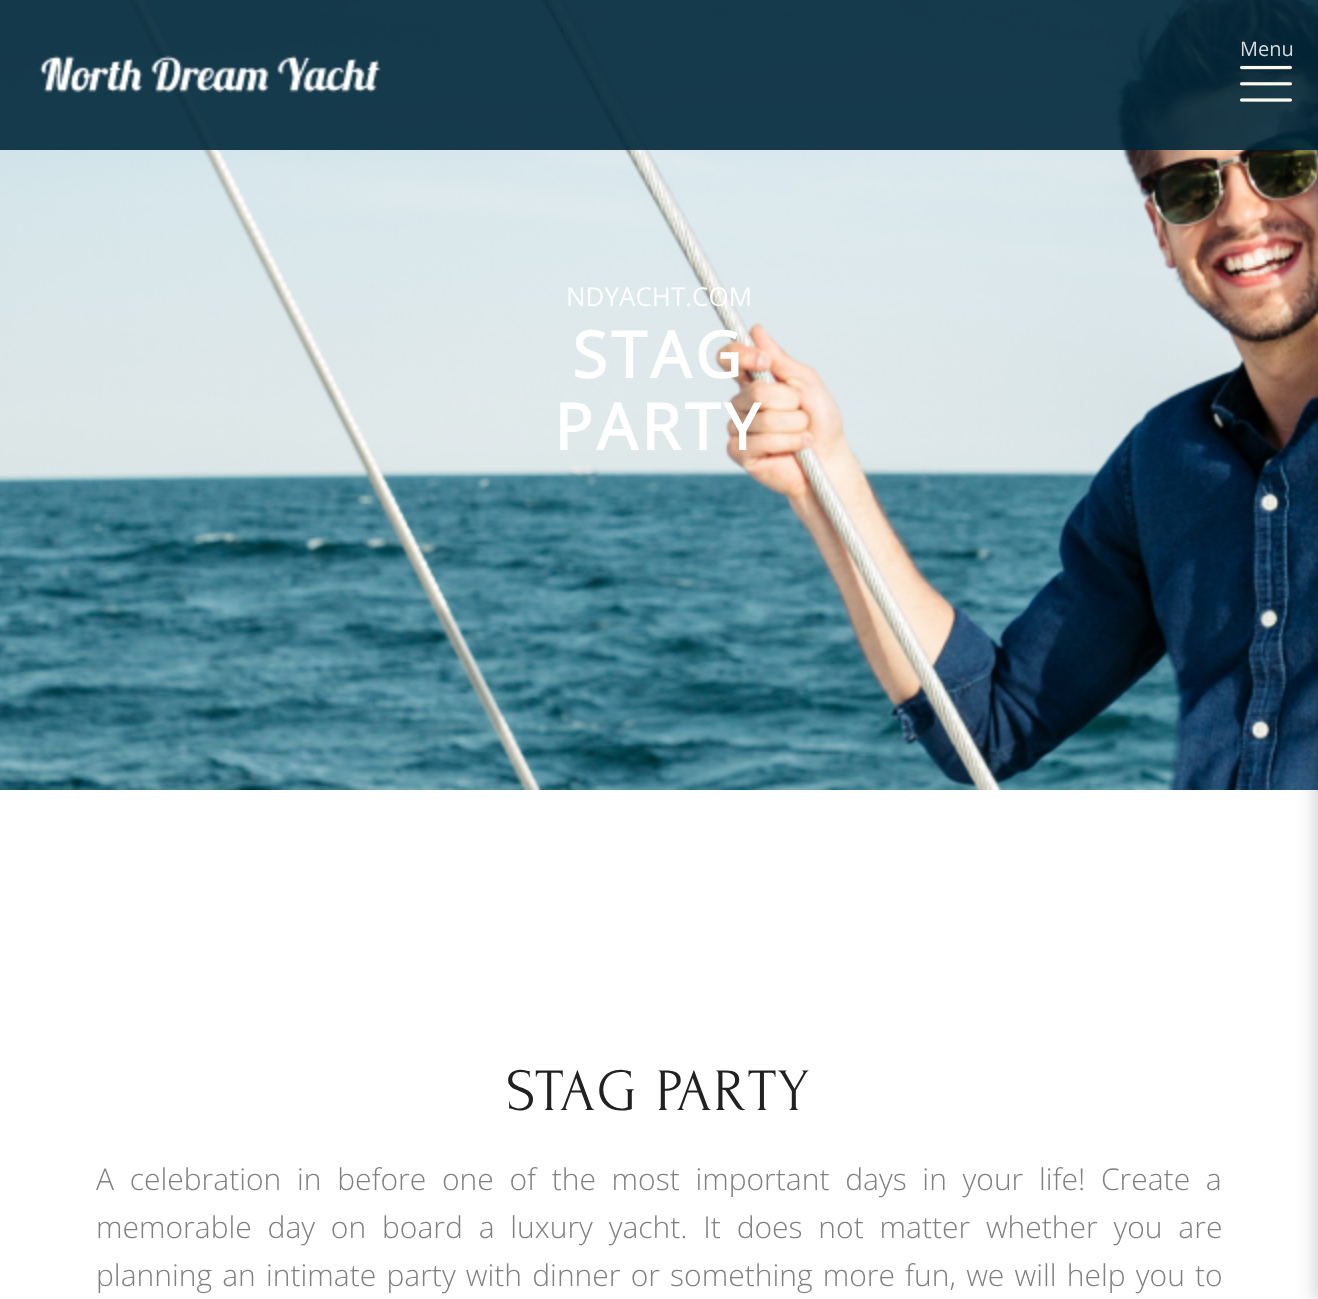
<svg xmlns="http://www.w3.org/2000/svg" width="1318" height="1299">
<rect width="100%" height="100%" fill="#fff"/>
<image x="0" y="0" width="1318" height="790" href="media/3.png"/>
<rect x="1316" y="-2" width="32" height="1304" fill="#00000033" filter="blur(10px)"/>
<rect width="1318" height="150" fill="#00273ae6"/>
<text x="1240" y="56" style="font-family:Open Sans;font-size:20px;fill:#dadada">Menu</text>
<image x="1240" y="65" width="52" height="37" href="media/1.png"/>
<image x="39" y="55" width="342" height="38" href="media/2.png"/>
<text x="566" y="306" style="font-family:Open Sans;font-size:26px;fill:#fff">NDYACHT.COM</text>
<text x="572" y="378" style="font-family:Open Sans;font-size:64px;font-weight:bold;letter-spacing:4px;fill:#fff">STAG</text>
<text x="554" y="450" style="font-family:Open Sans;font-size:64px;font-weight:bold;letter-spacing:4px;fill:#fff">PARTY</text>
<text x="506" y="1110" style="font-family:Forum;font-size:60px;letter-spacing:2px;fill:#212121">STAG PARTY</text>
<text x="96" y="1190" word-spacing="7.9" style="font-family:Open Sans;font-size:30px;font-weight:300;fill:#808080">A celebration in before one of the most important days in your life! Create a</text>
<text x="96" y="1238" word-spacing="8" style="font-family:Open Sans;font-size:30px;font-weight:300;fill:#808080">memorable day on board a luxury yacht. It does not matter whether you are</text>
<text x="96" y="1286" word-spacing="2.4" style="font-family:Open Sans;font-size:30px;font-weight:300;fill:#808080">planning an intimate party with dinner or something more fun, we will help you to</text>
</svg>
